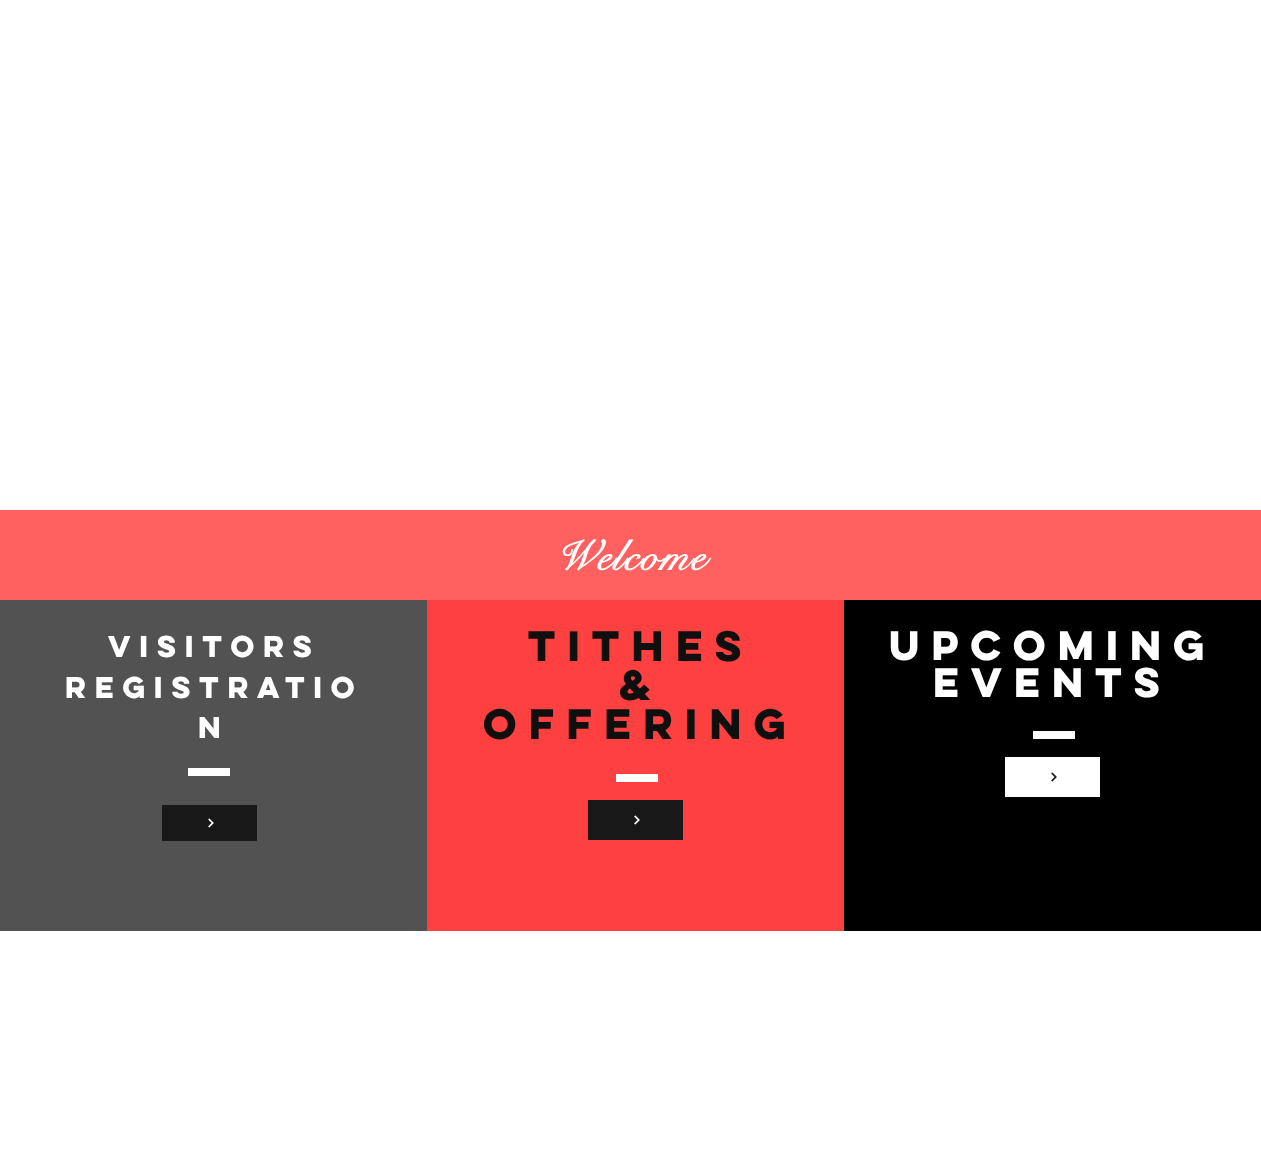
<svg xmlns="http://www.w3.org/2000/svg" width="1261" height="1152">
<rect width="100%" height="100%" fill="#fff"/>
<rect y="510" width="1261" height="90" fill="#ff6161"/>
<text x="555" y="570" style="font-family:'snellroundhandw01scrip';font-size:42px;font-weight:bold;letter-spacing:2px;fill:#fff">Welcome</text>
<rect y="600" width="427" height="331" fill="#525252"/>
<text x="108" y="657" style="font-family:'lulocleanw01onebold';font-size:27px;font-weight:bold;letter-spacing:2.75px;fill:#fff">Visitors</text>
<text x="65" y="698" style="font-family:'lulocleanw01onebold';font-size:27px;font-weight:bold;letter-spacing:2.75px;fill:#fff">Registratio</text>
<text x="198" y="738" style="font-family:'lulocleanw01onebold';font-size:27px;font-weight:bold;letter-spacing:2.75px;fill:#fff">n</text>
<rect x="188" y="768" width="42" height="8" fill="#fff"/>
<rect x="162" y="805" width="95" height="36" fill="#181818"/>
<image x="208" y="818" width="6" height="10" href="media/1.png"/>
<rect x="427" y="600" width="417" height="331" fill="#ff4040"/>
<text x="528" y="661" style="font-family:'lulocleanw01onebold';font-size:38px;font-weight:bold;letter-spacing:3.75px;fill:#0f0f0f">Tithes</text>
<text x="619" y="700" style="font-family:'lulocleanw01onebold';font-size:38px;font-weight:bold;letter-spacing:3.75px;fill:#0f0f0f">&amp;</text>
<text x="483" y="739" style="font-family:'lulocleanw01onebold';font-size:38px;font-weight:bold;letter-spacing:3.75px;fill:#0f0f0f">Offering</text>
<rect x="616" y="774" width="42" height="8" fill="#fff"/>
<rect x="588" y="800" width="95" height="40" fill="#181818"/>
<image x="634" y="815" width="6" height="10" href="media/1.png"/>
<rect x="844" y="600" width="417" height="331" fill="#000"/>
<text x="889" y="660" style="font-family:'lulocleanw01onebold';font-size:37px;font-weight:bold;letter-spacing:3.75px;fill:#fff">Upcoming</text>
<text x="933" y="697" style="font-family:'lulocleanw01onebold';font-size:37px;font-weight:bold;letter-spacing:3.75px;fill:#fff">Events</text>
<rect x="1033" y="731" width="42" height="8" fill="#fff"/>
<rect x="1005" y="757" width="95" height="40" fill="#fff"/>
<image x="1051" y="772" width="6" height="10" href="media/2.png"/>
</svg>
